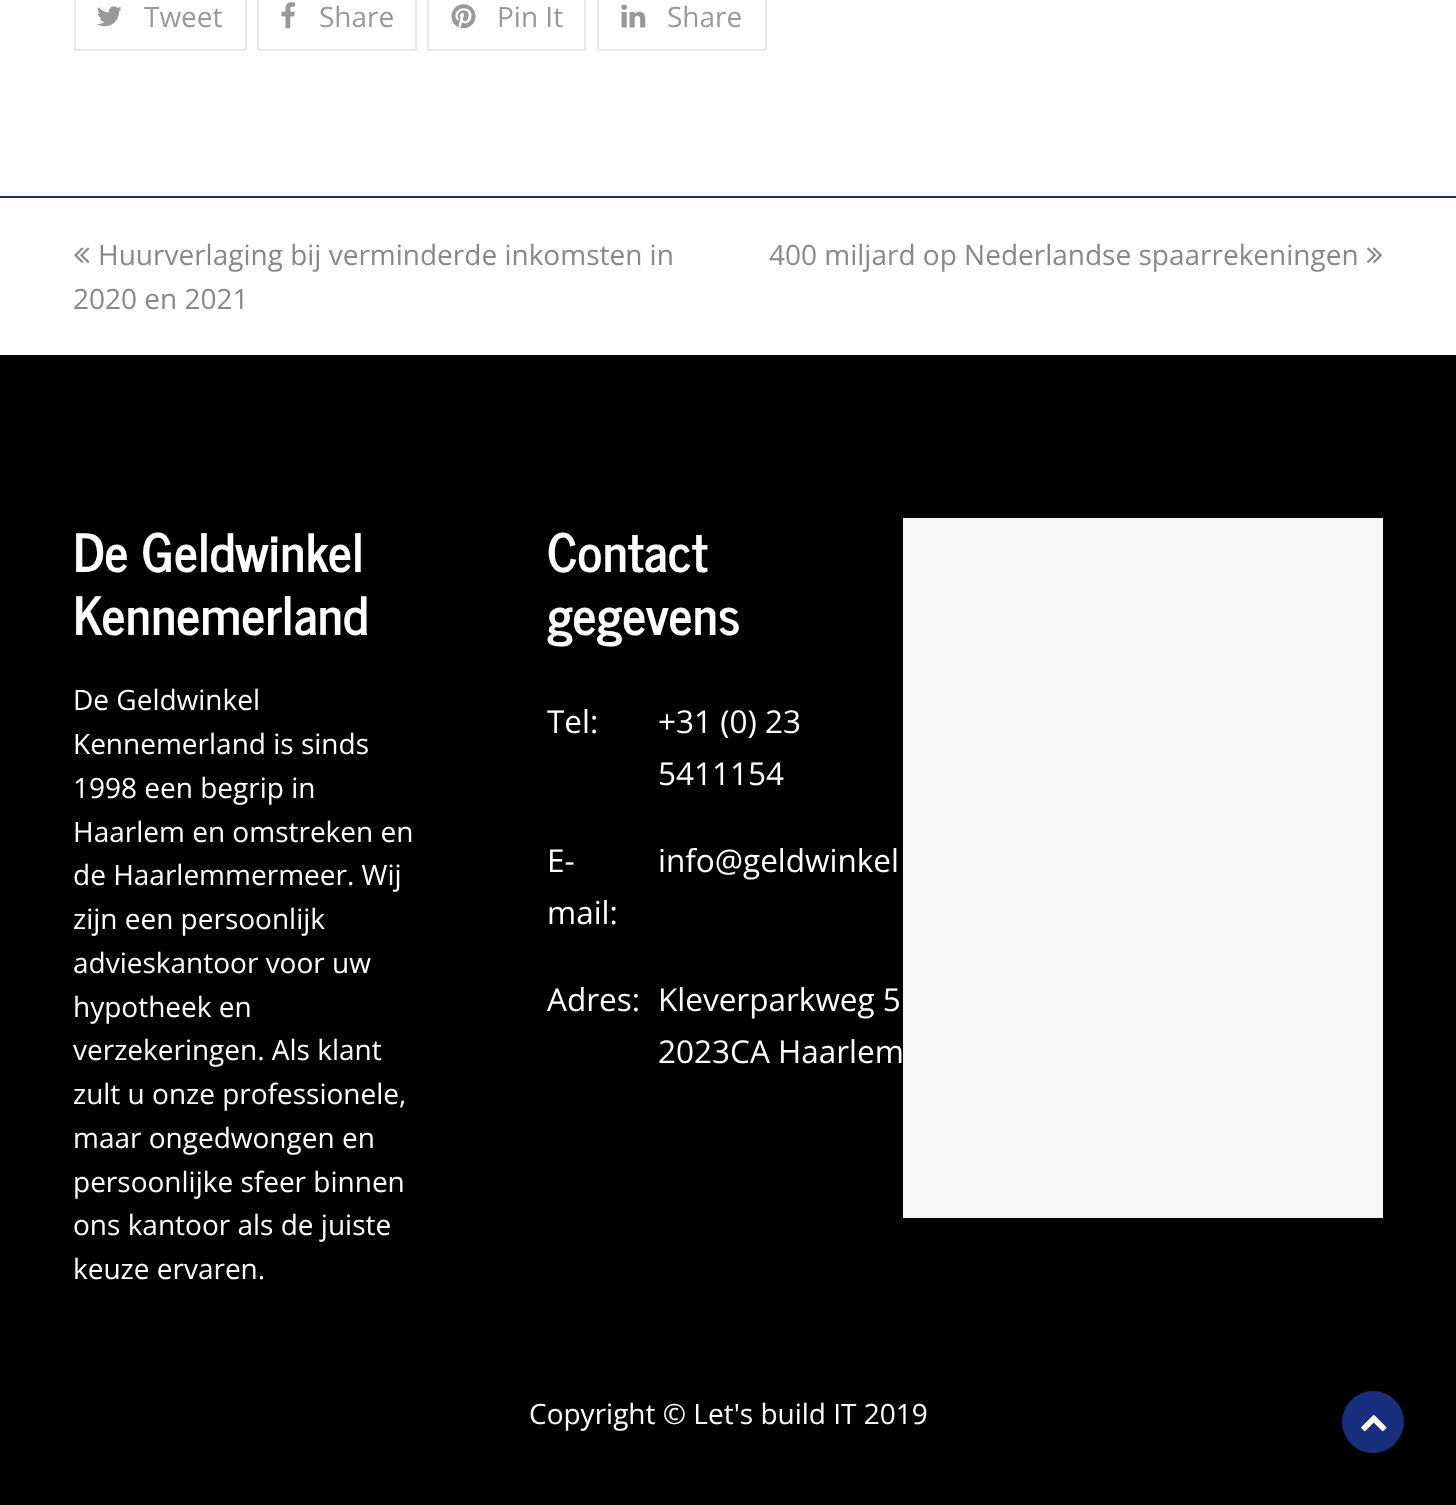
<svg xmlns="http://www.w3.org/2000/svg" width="1456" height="1505">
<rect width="100%" height="100%" fill="#fff"/>
<rect x="75" y="-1" width="171" height="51" fill="none" stroke="#e8e8e8" stroke-width="2"/>
<image x="97" y="6" width="25" height="21" href="media/1.png"/>
<text x="144" y="27" style="font-family:Open Sans;font-size:28px;fill:#999">Tweet</text>
<rect x="258" y="-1" width="158" height="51" fill="none" stroke="#e8e8e8" stroke-width="2"/>
<image x="281" y="2" width="14" height="27" href="media/2.png"/>
<text x="319" y="27" style="font-family:Open Sans;font-size:28px;fill:#999">Share</text>
<rect x="428" y="-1" width="157" height="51" fill="none" stroke="#e8e8e8" stroke-width="2"/>
<image x="451" y="4" width="25" height="25" href="media/3.png"/>
<text x="497" y="27" style="font-family:Open Sans;font-size:28px;fill:#999">Pin It</text>
<rect x="598" y="-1" width="168" height="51" fill="none" stroke="#e8e8e8" stroke-width="2"/>
<image x="621" y="4" width="25" height="24" href="media/4.png"/>
<text x="667" y="27" style="font-family:Open Sans;font-size:28px;fill:#999">Share</text>
<rect y="196" width="1456" height="2" fill="#172f7c"/>
<image x="74" y="247" width="16" height="16" href="media/5.png"/>
<text x="98" y="265" style="font-family:Open Sans;font-size:28px;fill:#888">Huurverlaging bij verminderde inkomsten in</text>
<text x="73" y="309" style="font-family:Open Sans;font-size:28px;fill:#888">2020 en 2021</text>
<text x="769" y="265" style="font-family:Open Sans;font-size:28px;fill:#888">400 miljard op Nederlandse spaarrekeningen</text>
<image x="1367" y="247" width="15" height="16" href="media/6.png"/>
<rect y="355" width="1456" height="1150" fill="#000"/>
<text x="73" y="572" style="font-family:News Cycle;font-size:52.5px;font-weight:bold;fill:#fff">De Geldwinkel</text>
<text x="73" y="635" style="font-family:News Cycle;font-size:52.5px;font-weight:bold;fill:#fff">Kennemerland</text>
<text x="73" y="710" style="font-family:Open Sans;font-size:28px;fill:#fff">De Geldwinkel</text>
<text x="73" y="754" style="font-family:Open Sans;font-size:28px;fill:#fff">Kennemerland is sinds</text>
<text x="73" y="798" style="font-family:Open Sans;font-size:28px;fill:#fff">1998 een begrip in</text>
<text x="73" y="842" style="font-family:Open Sans;font-size:28px;fill:#fff">Haarlem en omstreken en</text>
<text x="73" y="885" style="font-family:Open Sans;font-size:28px;fill:#fff">de Haarlemmermeer. Wij</text>
<text x="73" y="929" style="font-family:Open Sans;font-size:28px;fill:#fff">zijn een persoonlijk</text>
<text x="73" y="973" style="font-family:Open Sans;font-size:28px;fill:#fff">advieskantoor voor uw</text>
<text x="73" y="1017" style="font-family:Open Sans;font-size:28px;fill:#fff">hypotheek en</text>
<text x="73" y="1060" style="font-family:Open Sans;font-size:28px;fill:#fff">verzekeringen. Als klant</text>
<text x="73" y="1104" style="font-family:Open Sans;font-size:28px;fill:#fff">zult u onze professionele,</text>
<text x="73" y="1148" style="font-family:Open Sans;font-size:28px;fill:#fff">maar ongedwongen en</text>
<text x="73" y="1192" style="font-family:Open Sans;font-size:28px;fill:#fff">persoonlijke sfeer binnen</text>
<text x="73" y="1235" style="font-family:Open Sans;font-size:28px;fill:#fff">ons kantoor als de juiste</text>
<text x="73" y="1279" style="font-family:Open Sans;font-size:28px;fill:#fff">keuze ervaren.</text>
<text x="547" y="572" style="font-family:News Cycle;font-size:52.5px;font-weight:bold;fill:#fff">Contact</text>
<text x="547" y="635" style="font-family:News Cycle;font-size:52.5px;font-weight:bold;fill:#fff">gegevens</text>
<text x="547" y="733" style="font-family:Open Sans;font-size:31.5px;fill:#fff">Tel:</text>
<text x="658" y="733" style="font-family:Open Sans;font-size:31.5px;fill:#fff">+31 (0) 23</text>
<text x="658" y="785" style="font-family:Open Sans;font-size:31.5px;fill:#fff">5411154</text>
<text x="547" y="872" style="font-family:Open Sans;font-size:31.5px;fill:#fff">E-</text>
<text x="547" y="924" style="font-family:Open Sans;font-size:31.5px;fill:#fff">mail:</text>
<text x="658" y="872" style="font-family:Open Sans;font-size:31.5px;fill:#fff">info@geldwinkel</text>
<text x="547" y="1011" style="font-family:Open Sans;font-size:31.5px;fill:#fff">Adres:</text>
<text x="658" y="1011" style="font-family:Open Sans;font-size:31.5px;fill:#fff">Kleverparkweg 5</text>
<text x="658" y="1063" style="font-family:Open Sans;font-size:31.5px;fill:#fff">2023CA Haarlem</text>
<rect x="903" y="518" width="480" height="700" fill="#f7f7f7"/>
<text x="529" y="1424" style="font-family:Open Sans;font-size:28px;fill:#fff">Copyright © Let's build IT 2019</text>
<circle cx="1373" cy="1422" r="31" fill="#172f7c"/>
<image x="1361" y="1415" width="26" height="17" href="media/7.png"/>
</svg>
